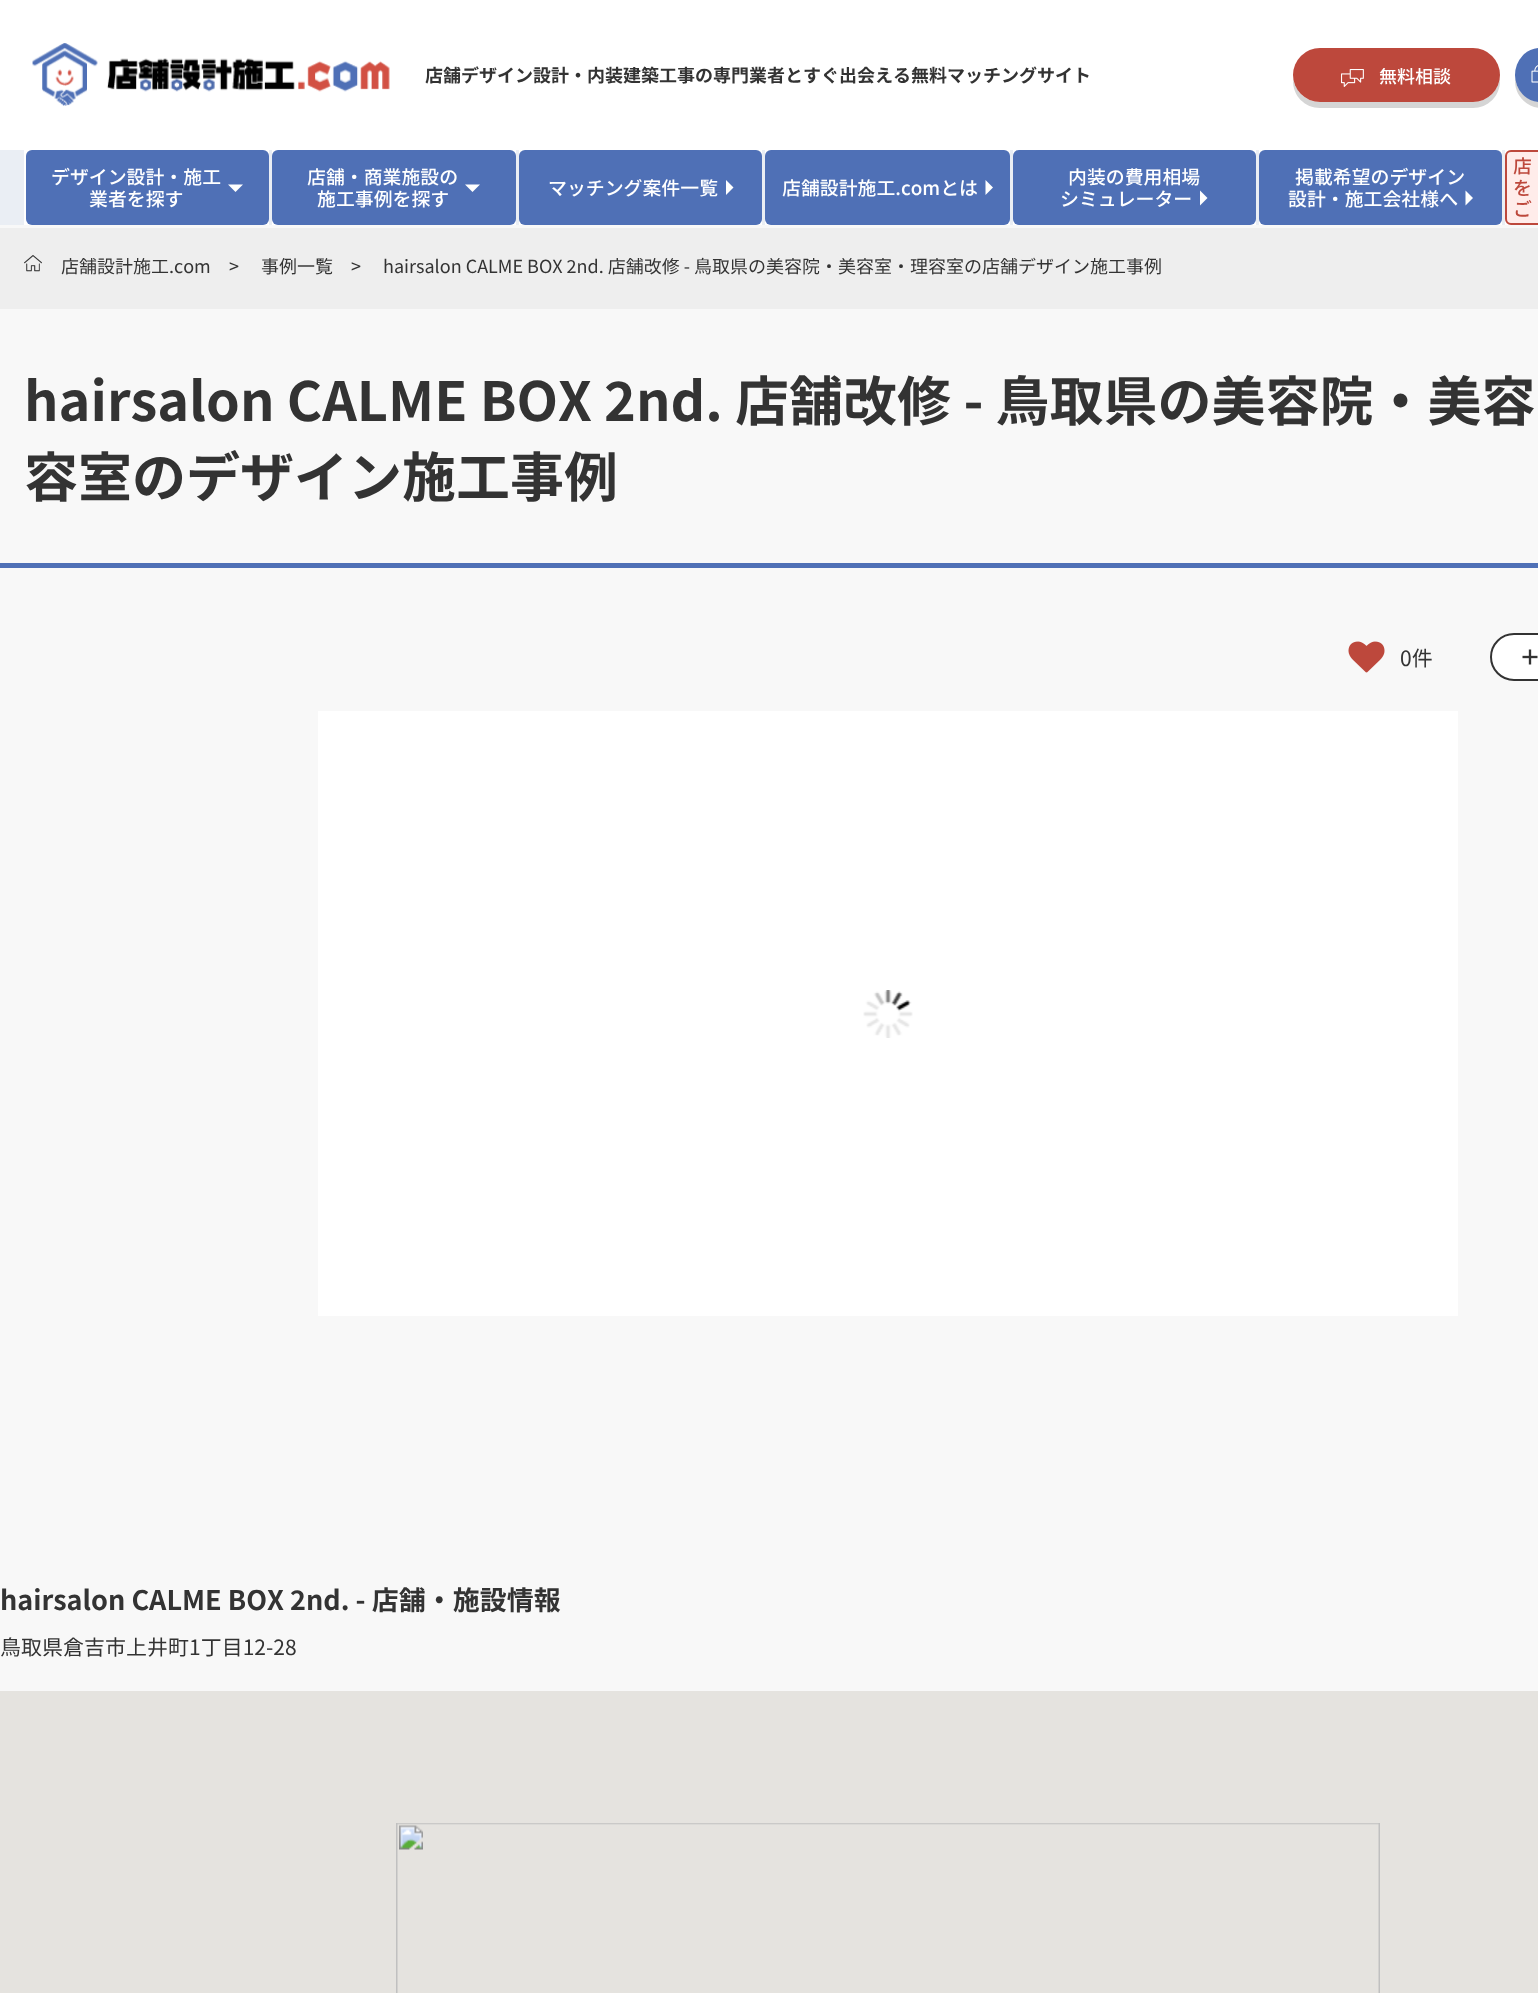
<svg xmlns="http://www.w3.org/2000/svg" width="1538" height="1993">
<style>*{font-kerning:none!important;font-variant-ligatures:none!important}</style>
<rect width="100%" height="100%" fill="#f8f8f8"/>
<rect width="1538" height="150" fill="#fff"/>
<image x="32" y="43" width="358" height="63" href="media/1.png"/>
<text x="425" y="82" style="font-family:Noto Sans JP;font-size:18px;font-weight:bold;fill:#333">店舗デザイン設計・内装建築工事の専門業者とすぐ出会える無料マッチングサイト</text>
<path d="M1293 78v3c0 15 12 27 27 27h153c15 0 27-12 27-27v-3c-2 13-13 24-27 24h-153c-14 0-25-11-27-24z" fill="#d5d5d5"/>
<rect x="1293" y="48" width="207" height="54" rx="27" fill="#bd483c"/>
<image x="1341" y="69" width="23" height="18" href="media/2.png"/>
<text x="1379" y="83" style="font-family:Noto Sans JP;font-size:18px;font-weight:500;fill:#fff">無料相談</text>
<path d="M1515 78v3c0 15 12 27 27 27h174c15 0 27-12 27-27v-3c-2 13-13 24-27 24h-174c-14 0-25-11-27-24z" fill="#d5d5d5"/>
<rect x="1515" y="48" width="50" height="54" rx="27" fill="#4f70b6"/>
<image x="1531" y="65" width="7" height="18" href="media/3.png"/>
<rect y="150" width="1505" height="75" fill="#eaeef4"/>
<rect x="24" y="150" width="245" height="75" fill="#fff"/>
<rect x="26" y="150" width="243" height="75" rx="6" fill="#4f70b6"/>
<text x="51" y="184" style="font-family:Noto Sans JP;font-size:18.9px;font-weight:500;fill:#fff">デザイン設計・施工</text>
<text x="89" y="206" style="font-family:Noto Sans JP;font-size:18.9px;font-weight:500;fill:#fff">業者を探す</text>
<path d="M228 184.5h15l-7.5 7.5z" fill="#fff"/>
<rect x="272" y="150" width="244" height="75" fill="#fff"/>
<rect x="272" y="150" width="244" height="75" rx="6" fill="#4f70b6"/>
<text x="307" y="184" style="font-family:Noto Sans JP;font-size:18.9px;font-weight:500;fill:#fff">店舗・商業施設の</text>
<text x="317" y="206" style="font-family:Noto Sans JP;font-size:18.9px;font-weight:500;fill:#fff">施工事例を探す</text>
<path d="M465 184.5h15l-7.5 7.5z" fill="#fff"/>
<rect x="519" y="150" width="243" height="75" fill="#fff"/>
<rect x="519" y="150" width="243" height="75" rx="6" fill="#4f70b6"/>
<text x="548" y="195" style="font-family:Noto Sans JP;font-size:18.9px;font-weight:500;fill:#fff">マッチング案件一覧</text>
<path d="M726 195v-15l7.5 7.5z" fill="#fff"/>
<rect x="765" y="150" width="245" height="75" fill="#fff"/>
<rect x="765" y="150" width="245" height="75" rx="6" fill="#4f70b6"/>
<text x="782" y="195" style="font-family:Noto Sans JP;font-size:18.9px;font-weight:500;fill:#fff">店舗設計施工.comとは</text>
<path d="M985.5 195v-15l7.5 7.5z" fill="#fff"/>
<rect x="1013" y="150" width="243" height="75" fill="#fff"/>
<rect x="1013" y="150" width="243" height="75" rx="6" fill="#4f70b6"/>
<text x="1068" y="184" style="font-family:Noto Sans JP;font-size:18.9px;font-weight:500;fill:#fff">内装の費用相場</text>
<text x="1060" y="206" style="font-family:Noto Sans JP;font-size:18.9px;font-weight:500;fill:#fff">シミュレーター</text>
<path d="M1200 205.5v-15l7.5 7.5z" fill="#fff"/>
<rect x="1259" y="150" width="243" height="75" fill="#fff"/>
<rect x="1259" y="150" width="243" height="75" rx="6" fill="#4f70b6"/>
<text x="1295" y="184" style="font-family:Noto Sans JP;font-size:18.9px;font-weight:500;fill:#fff">掲載希望のデザイン</text>
<text x="1288" y="206" style="font-family:Noto Sans JP;font-size:18.9px;font-weight:500;fill:#fff">設計・施工会社様へ</text>
<path d="M1465.5 205.5v-15l7.5 7.5z" fill="#fff"/>
<rect x="1505" y="150" width="6" height="75" fill="#fff"/>
<rect x="1506" y="151" width="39" height="73" rx="5" fill="#ffecea" stroke="#bd483c" stroke-width="2"/>
<text x="1513" y="173" style="font-family:Noto Sans JP;font-size:18.9px;font-weight:500;fill:#bd483c">店</text>
<text x="1513" y="195" style="font-family:Noto Sans JP;font-size:18.9px;font-weight:500;fill:#bd483c">を</text>
<text x="1513" y="216" style="font-family:Noto Sans JP;font-size:18.9px;font-weight:500;fill:#bd483c">ご</text>
<rect y="228" width="1538" height="81" fill="#eee"/>
<image x="24" y="255" width="18" height="17" href="media/4.png"/>
<text x="61" y="273" style="font-family:Noto Sans JP;font-size:18px;fill:#333">店舗設計施工.com</text>
<text x="229" y="273" style="font-family:Noto Sans JP;font-size:18px;fill:#333">&gt;</text>
<text x="261" y="273" style="font-family:Noto Sans JP;font-size:18px;fill:#333">事例一覧</text>
<text x="351" y="273" style="font-family:Noto Sans JP;font-size:18px;fill:#333">&gt;</text>
<text x="383" y="273" style="font-family:Noto Sans JP;font-size:18px;fill:#333">hairsalon CALME BOX 2nd. 店舗改修 - 鳥取県の美容院・美容室・理容室の店舗デザイン施工事例</text>
<rect y="563" width="1538" height="5" fill="#4f70b6"/>
<text x="24" y="421" style="font-family:Noto Sans JP;font-size:54px;font-weight:bold;fill:#333">hairsalon CALME BOX 2nd. 店舗改修 - 鳥取県の美容院・美容</text>
<text x="24" y="497" style="font-family:Noto Sans JP;font-size:54px;font-weight:bold;fill:#333">容室のデザイン施工事例</text>
<image x="1348" y="641" width="37" height="32" href="media/5.png"/>
<text x="1400" y="666" style="font-family:Noto Sans JP;font-size:21px;fill:#333">0件</text>
<rect x="1491" y="634" width="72" height="46" rx="23" fill="#fff" stroke="#333" stroke-width="2"/>
<image x="1522" y="649" width="16" height="16" href="media/6.png"/>
<rect x="318" y="711" width="1140" height="605" fill="#fff"/>
<image x="863" y="990" width="50" height="48" href="media/7.png"/>
<text x="0" y="1610" style="font-family:Noto Sans JP;font-size:27px;font-weight:bold;fill:#333">hairsalon CALME BOX 2nd. - 店舗・施設情報</text>
<text x="0" y="1655" style="font-family:Noto Sans JP;font-size:21px;fill:#333">鳥取県倉吉市上井町1丁目12-28</text>
<image x="0" y="1691" width="1538" height="302" href="media/8.png"/>
</svg>
